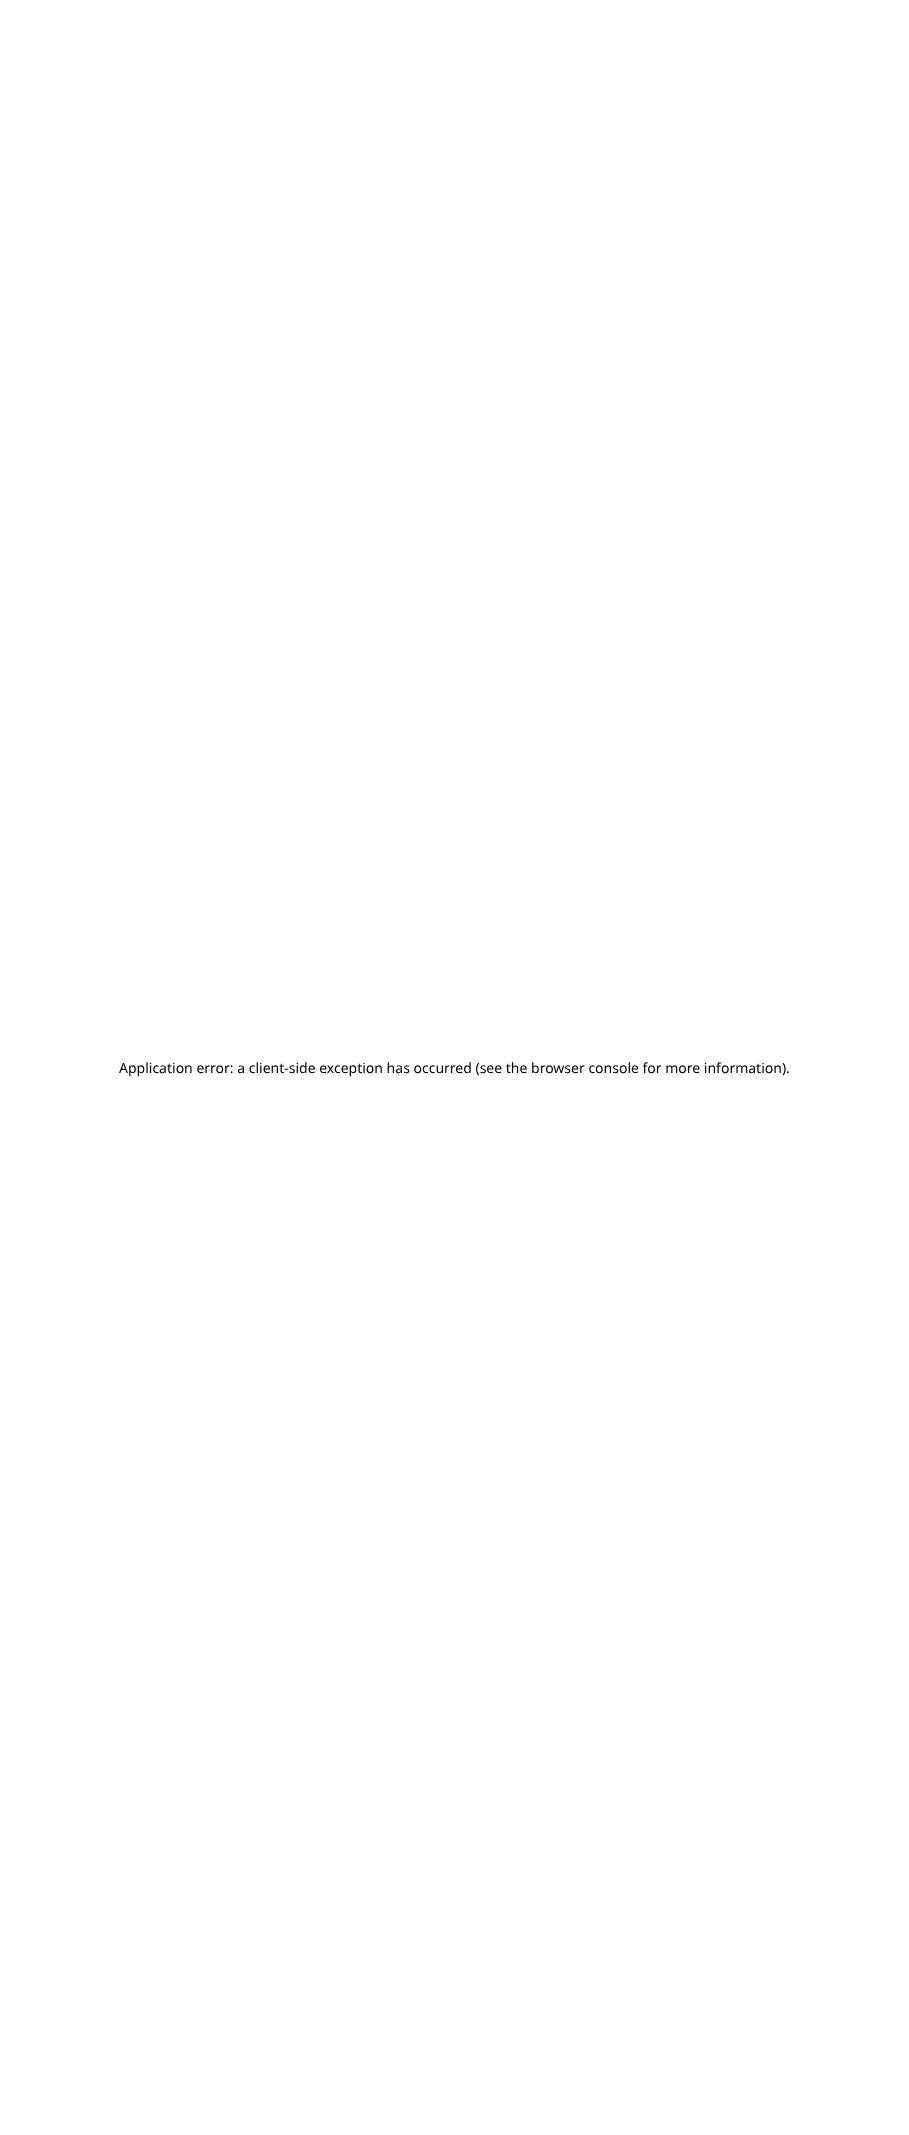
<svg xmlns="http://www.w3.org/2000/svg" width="909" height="2135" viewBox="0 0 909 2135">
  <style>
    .t1 { font: 14px Noto Sans; fill: #000; }
  </style>
  <rect width="100%" height="100%" fill="#fff"/>
  <text x="119" y="1073" class="t1">Application error: a client-side exception has occurred (see the browser console for more information).</text>
</svg>
